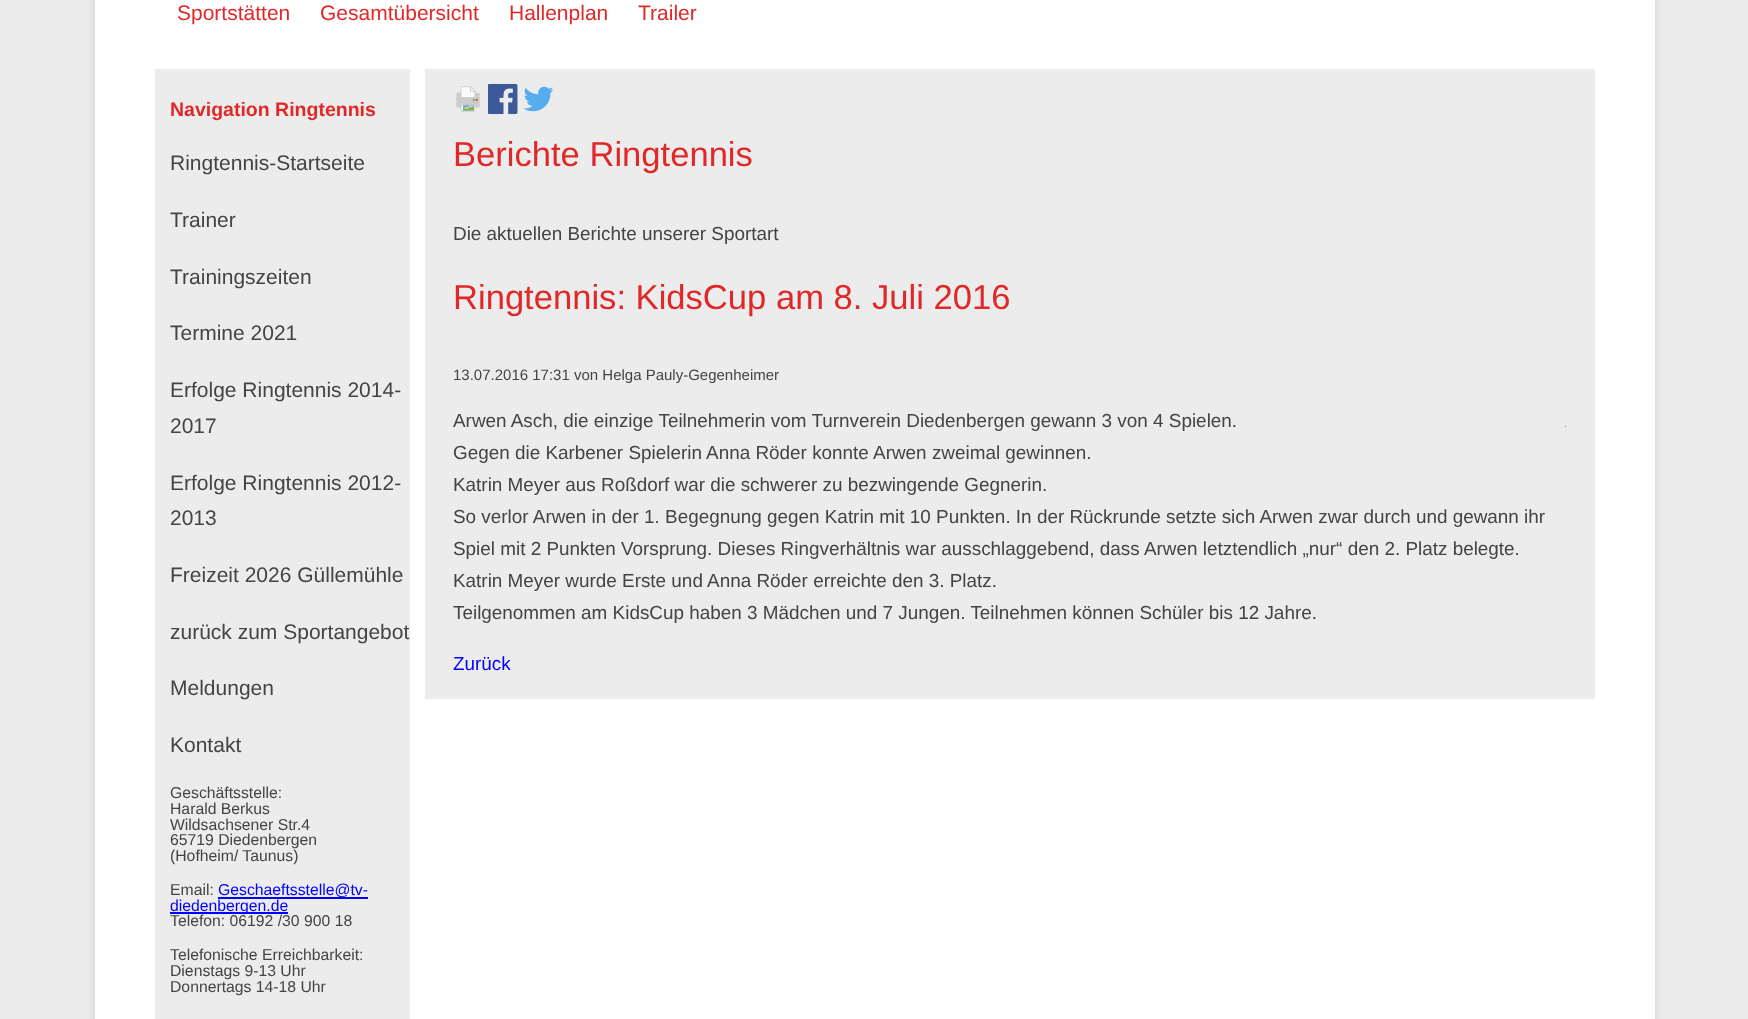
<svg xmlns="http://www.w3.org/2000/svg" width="1748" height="1019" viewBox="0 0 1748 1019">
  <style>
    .t1 { font: 21px Liberation Sans; fill: #e02828; }
    .t2 { font: bold 19.5px Liberation Sans; fill: #e02828; }
    .t3 { font: 21px Liberation Sans; fill: #444; }
    .t4 { font: 15.75px Liberation Sans; fill: #444; }
    .t5 { font: 15.75px Liberation Sans; fill: #00f; }
    .t6 { font: 34.6px Liberation Sans; fill: #e02828; }
    .t7 { font: 18.9px Liberation Sans; fill: #444; }
    .t8 { font: 15px Liberation Sans; fill: #444; }
    .t9 { font: 18.9px Liberation Sans; fill: #00f; }
  </style>
  <rect width="100%" height="100%" fill="#ececec"/>
  <rect x="95" y="-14" width="1560" height="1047" fill="#8e8e8e4d" filter="blur(4.5px)"/>
  <rect x="95" y="0" width="1560" height="1019" fill="#fff"/>
  <text x="177" y="20" class="t1">Sportstätten</text>
  <text x="320" y="20" class="t1">Gesamtübersicht</text>
  <text x="509" y="20" class="t1">Hallenplan</text>
  <text x="638" y="20" class="t1">Trailer</text>
  <rect x="155" y="69" width="255" height="950" fill="#ececec"/>
  <text x="170" y="116" class="t2">Navigation Ringtennis</text>
  <text x="170" y="170" class="t3">Ringtennis-Startseite</text>
  <text x="170" y="227" class="t3">Trainer</text>
  <text x="170" y="284" class="t3">Trainingszeiten</text>
  <text x="170" y="340" class="t3">Termine 2021</text>
  <text x="170" y="397" class="t3">Erfolge Ringtennis 2014-</text>
  <text x="170" y="433" class="t3">2017</text>
  <text x="170" y="490" class="t3">Erfolge Ringtennis 2012-</text>
  <text x="170" y="525" class="t3">2013</text>
  <text x="170" y="582" class="t3">Freizeit 2026 Güllemühle</text>
  <text x="170" y="639" class="t3">zurück zum Sportangebot</text>
  <text x="170" y="695" class="t3">Meldungen</text>
  <text x="170" y="752" class="t3">Kontakt</text>
  <text x="170" y="798" class="t4">Geschäftsstelle:</text>
  <text x="170" y="814" class="t4">Harald Berkus</text>
  <text x="170" y="830" class="t4">Wildsachsener Str.4</text>
  <text x="170" y="845" class="t4">65719 Diedenbergen</text>
  <text x="170" y="861" class="t4">(Hofheim/ Taunus)</text>
  <text x="170" y="895" class="t4">Email:</text>
  <rect x="218" y="897" width="150" height="2" fill="#00f"/>
  <text x="218" y="895" class="t5">Geschaeftsstelle@tv-</text>
  <rect x="170" y="912" width="118" height="2" fill="#00f"/>
  <text x="170" y="911" class="t5">diedenbergen.de</text>
  <text x="170" y="926" class="t4">Telefon: 06192 /30 900 18</text>
  <text x="170" y="960" class="t4">Telefonische Erreichbarkeit:</text>
  <text x="170" y="976" class="t4">Dienstags 9-13 Uhr</text>
  <text x="170" y="992" class="t4">Donnertags 14-18 Uhr</text>
  <rect x="425" y="69" width="1170" height="630" fill="#ececec"/>
  <image x="456" y="86" width="24" height="26" href="images/1.png"/>
  <image x="488" y="84" width="30" height="30" href="images/2.png"/>
  <image x="524" y="86" width="30" height="26" href="images/3.png"/>
  <text x="453" y="166" class="t6">Berichte Ringtennis</text>
  <text x="453" y="240" class="t7">Die aktuellen Berichte unserer Sportart</text>
  <text x="453" y="309" class="t6">Ringtennis: KidsCup am 8. Juli 2016</text>
  <text x="453" y="380" class="t8">13.07.2016 17:31 von Helga Pauly-Gegenheimer</text>
  <text x="453" y="427" class="t7">Arwen Asch, die einzige Teilnehmerin vom Turnverein Diedenbergen gewann 3 von 4 Spielen.</text>
  <text x="453" y="459" class="t7">Gegen die Karbener Spielerin Anna Röder konnte Arwen zweimal gewinnen.</text>
  <text x="453" y="491" class="t7">Katrin Meyer aus Roßdorf war die schwerer zu bezwingende Gegnerin.</text>
  <text x="453" y="523" class="t7">So verlor Arwen in der 1. Begegnung gegen Katrin mit 10 Punkten. In der Rückrunde setzte sich Arwen zwar durch und gewann ihr</text>
  <text x="453" y="555" class="t7">Spiel mit 2 Punkten Vorsprung. Dieses Ringverhältnis war ausschlaggebend, dass Arwen letztendlich „nur“ den 2. Platz belegte.</text>
  <text x="453" y="587" class="t7">Katrin Meyer wurde Erste und Anna Röder erreichte den 3. Platz.</text>
  <text x="453" y="619" class="t7">Teilgenommen am KidsCup haben 3 Mädchen und 7 Jungen. Teilnehmen können Schüler bis 12 Jahre.</text>
  <image x="1564" y="425" width="2" height="2" href="images/4.png"/>
  <text x="453" y="670" class="t9">Zurück</text>
</svg>
